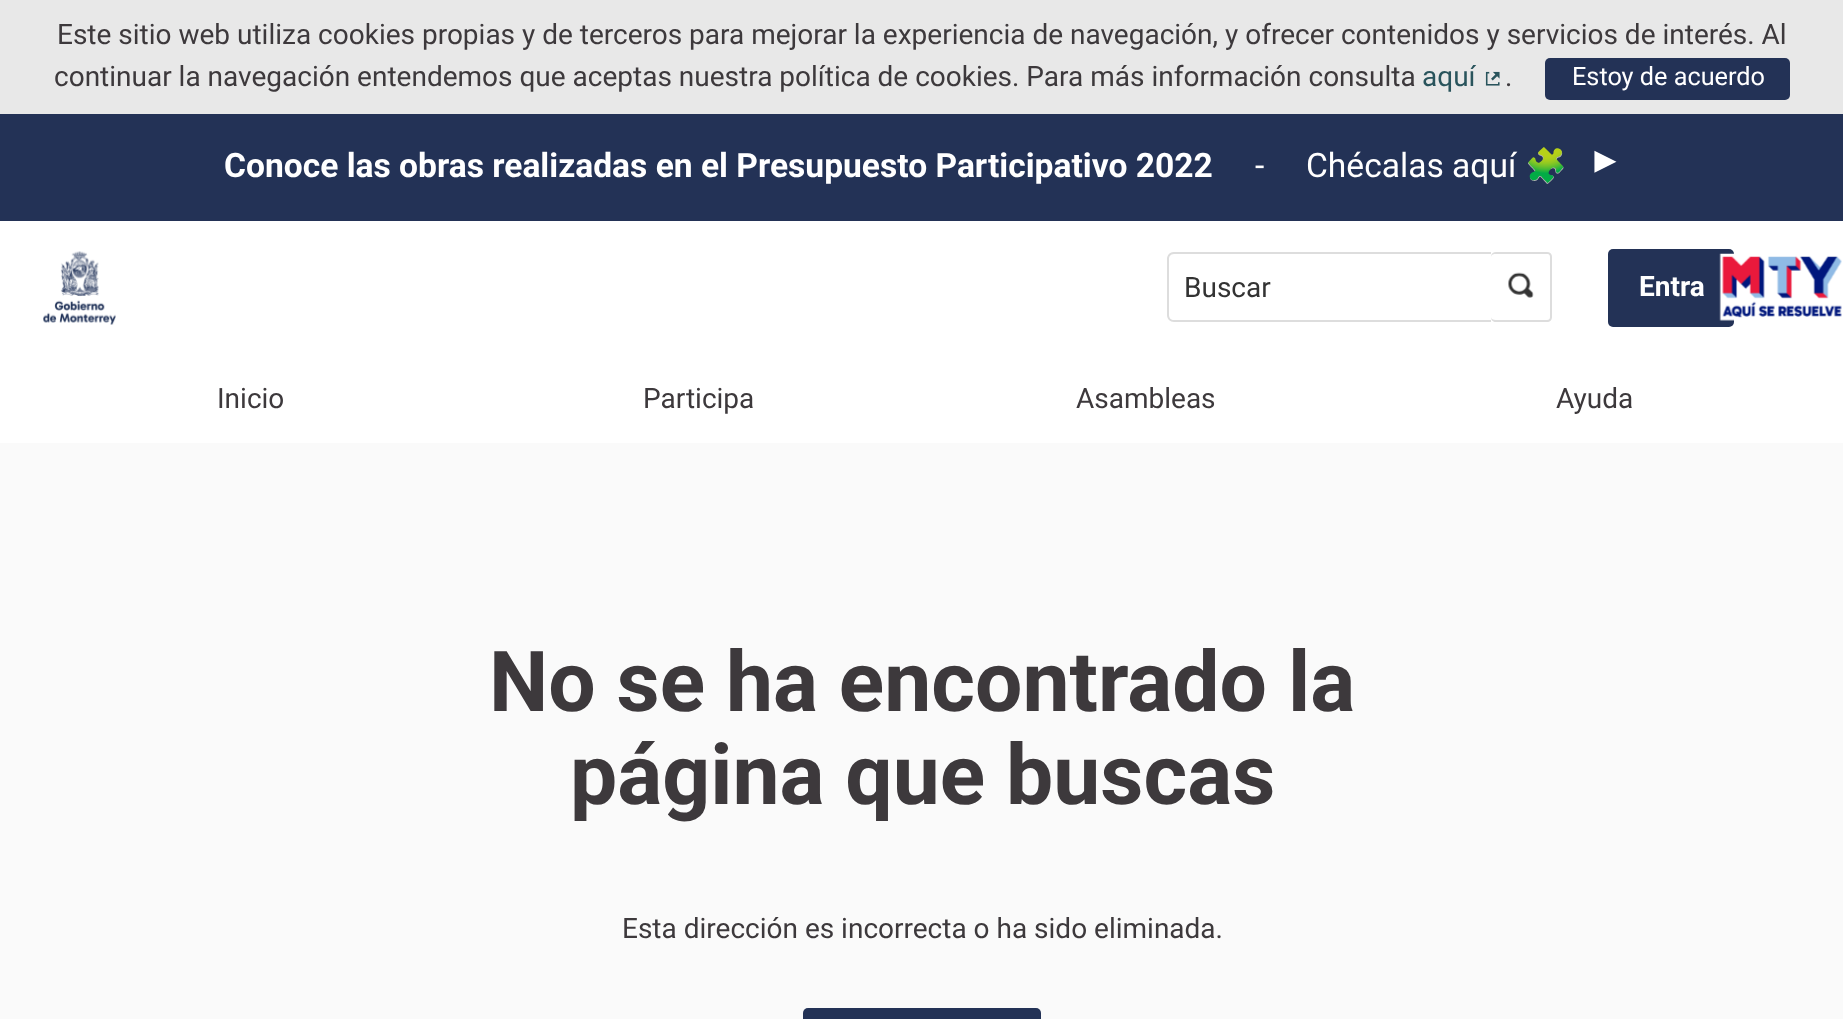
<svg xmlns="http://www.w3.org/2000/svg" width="1843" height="1019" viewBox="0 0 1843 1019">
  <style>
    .t1 { font: 28px Roboto; fill: #3d393c; }
    .t2 { font: 28px Roboto; fill: #29545c; }
    .t3 { font: 25.25px Roboto; fill: #fff; }
    .t4 { font: bold 33.6px Roboto; fill: #fff; }
    .t5 { font: 33.6px Roboto; fill: #fff; }
    .t6 { font: 33.6px Noto Color Emoji; fill: #fff; }
    .t7 { font: 28px Roboto; fill: #333; }
    .t8 { font: bold 28px Roboto; fill: #fff; }
    .t9 { font: bold 84px Roboto; fill: #3d393c; }
  </style>
  <rect width="100%" height="100%" fill="#fafafa"/>
  <rect x="0" y="0" width="1843" height="114" fill="#e8e8e8"/>
  <text x="57" y="44" class="t1">Este sitio web utiliza cookies propias y de terceros para mejorar la experiencia de navegación, y ofrecer contenidos y servicios de interés. Al</text>
  <text x="54" y="86" class="t1">continuar la navegación entendemos que aceptas nuestra política de cookies. Para más información consulta</text>
  <text x="1422" y="86" class="t2">aquí</text>
  <image x="1485" y="71" width="15" height="15" href="images/1.png"/>
  <text x="1505" y="86" class="t1">.</text>
  <rect x="1545" y="58" width="245" height="42" rx="5" fill="#233256"/>
  <text x="1572" y="85" class="t3">Estoy de acuerdo</text>
  <rect x="0" y="114" width="1843" height="107" fill="#233256"/>
  <text x="224" y="177" class="t4">Conoce las obras realizadas en el Presupuesto Participativo 2022</text>
  <text x="1255" y="177" class="t5">-</text>
  <text x="1306" y="177" class="t5">Chécalas aquí</text>
  <text x="1525" y="177" class="t6">🧩</text>
  <image x="1594" y="150" width="23" height="23" href="images/2.png"/>
  <rect x="0" y="221" width="1843" height="222" fill="#fff"/>
  <image x="43" y="251" width="73" height="74" href="images/3.png"/>
  <path d="M1174 252H1491V322H1174C1170 322 1167 319 1167 315V259C1167 255 1170 252 1174 252ZM1174 254H1491V320H1174C1171 320 1169 318 1169 315V259C1169 256 1171 254 1174 254Z" fill="#ddd" fill-rule="evenodd"/>
  <text x="1184" y="297" class="t7">Buscar</text>
  <path d="M1496 252H1547C1550 252 1552 254 1552 257V317C1552 320 1550 322 1547 322H1496C1493 322 1491 320 1491 317V257C1491 254 1493 252 1496 252ZM1496 254H1547C1549 254 1550 255 1550 257V317C1550 319 1549 320 1547 320H1496C1493 320 1491 319 1491 317V257C1491 255 1493 254 1496 254Z" fill="#ddd" fill-rule="evenodd"/>
  <image x="1508" y="272" width="26" height="26" href="images/4.png"/>
  <rect x="1608" y="249" width="126" height="78" rx="5" fill="#233256"/>
  <text x="1639" y="296" class="t8">Entra</text>
  <image x="1719" y="253" width="123" height="68" href="images/5.png"/>
  <text x="217" y="408" class="t1">Inicio</text>
  <text x="643" y="408" class="t1">Participa</text>
  <text x="1076" y="408" class="t1">Asambleas</text>
  <text x="1556" y="408" class="t1">Ayuda</text>
  <text x="489" y="711" class="t9">No se ha encontrado la</text>
  <text x="570" y="804" class="t9">página que buscas</text>
  <text x="622" y="938" class="t1">Esta dirección es incorrecta o ha sido eliminada.</text>
  <rect x="803" y="1008" width="238" height="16" rx="5" fill="#233256"/>
</svg>
